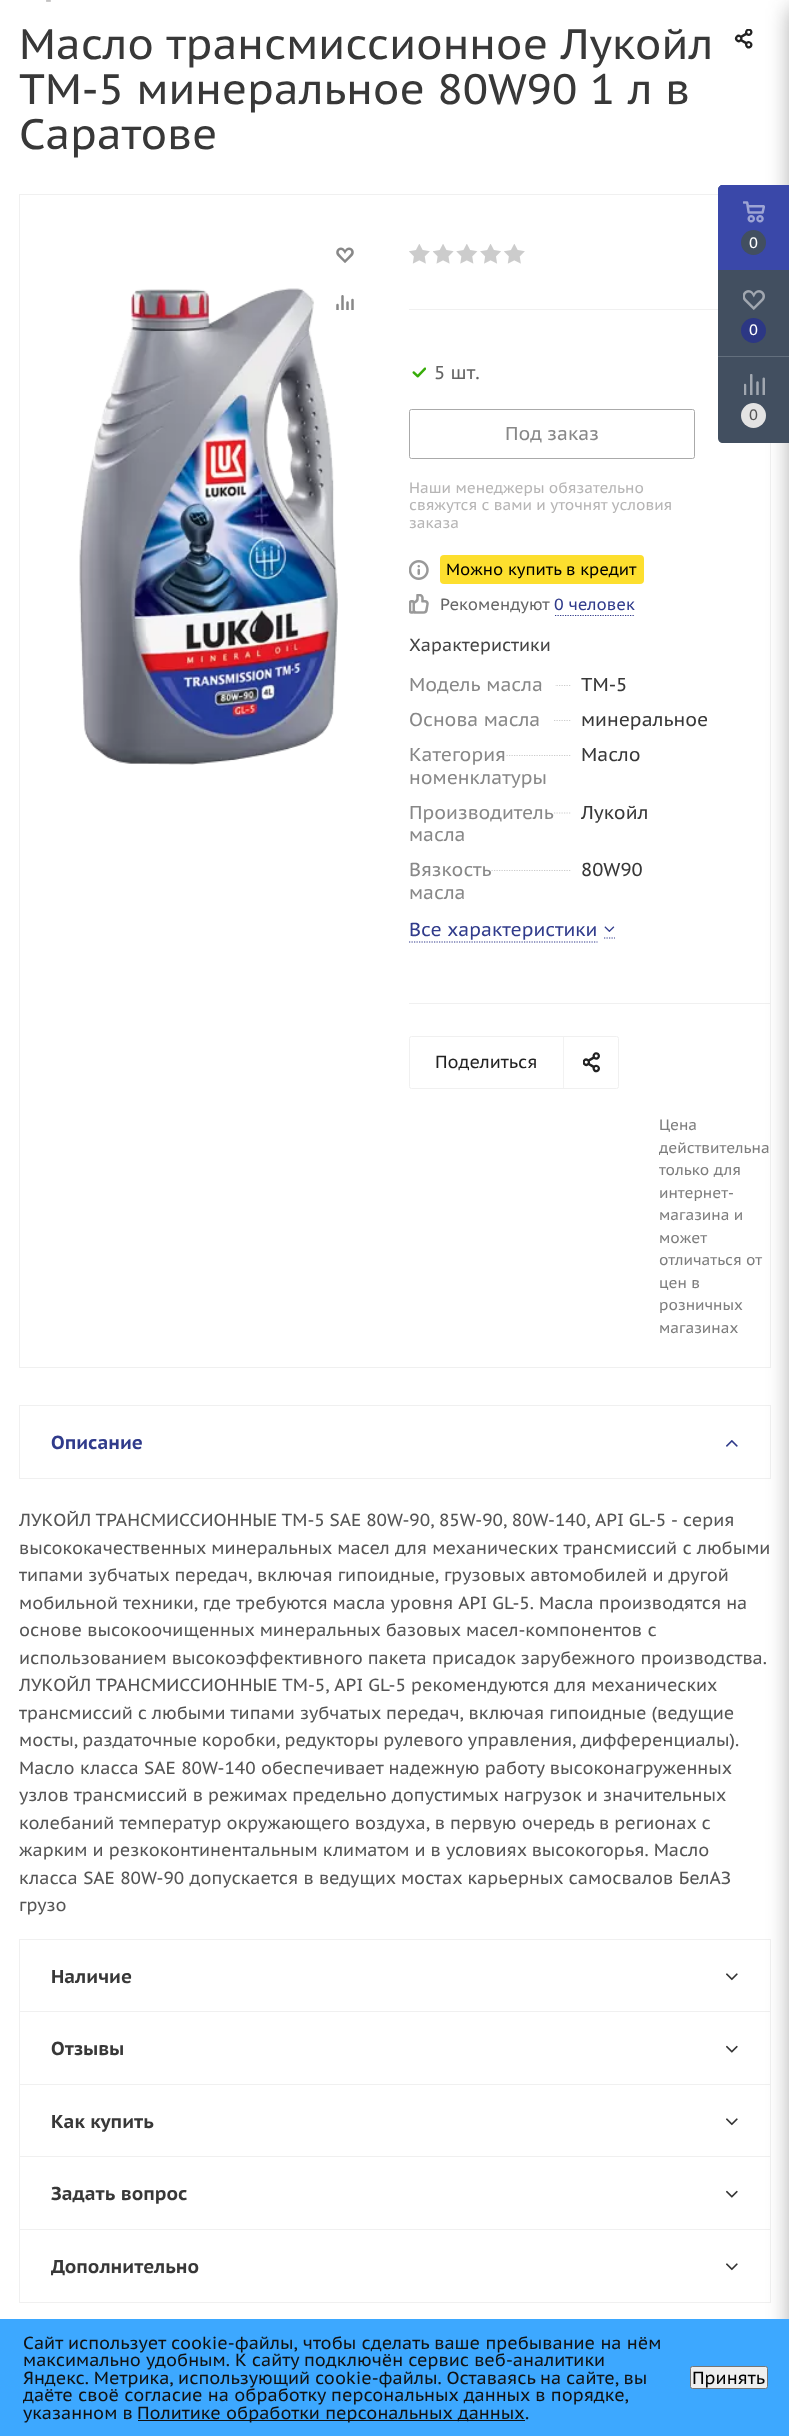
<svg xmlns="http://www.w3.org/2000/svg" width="789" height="2436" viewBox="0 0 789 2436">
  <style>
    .t1 { font: 17.5px PT Sans Caption; fill: #b6b5b5; }
    .t2 { font: 42.5px PT Sans Caption; fill: #383838; }
    .t3 { font: 18.75px PT Sans Caption; fill: #666; }
    .t4 { font: 18.75px PT Sans Caption; fill: #888; }
    .t5 { font: 15px PT Sans Caption; fill: #b6b5b5; }
    .t6 { font: 16.25px PT Sans Caption; fill: #000; }
    .t7 { font: 16.25px PT Sans Caption; fill: #666; }
    .t8 { font: 16.25px PT Sans Caption; fill: #303b8b; }
    .t9 { font: 17.5px PT Sans Caption; fill: #444; }
    .t10 { font: 18.75px PT Sans Caption; fill: #383838; }
    .t11 { font: 18.75px PT Sans Caption; fill: #303b8b; }
    .t12 { font: 17.5px PT Sans Caption; fill: #222; }
    .t13 { font: 15px PT Sans Caption; fill: #7d7d7d; }
    .t14 { font: bold 18.75px PT Sans Caption; fill: #303b8b; }
    .t15 { font: 17.5px PT Sans Caption; fill: #555; }
    .t16 { font: bold 18.75px PT Sans Caption; fill: #383838; }
    .t17 { font: 15px PT Sans Caption; fill: #fff; }
    .t18 { font: 15px PT Sans Caption; fill: #555; }
    .t19 { font: 17.5px PT Sans Caption; fill: #111; }
    .t20 { font: 17.5px PT Sans Caption; fill: #000; }
  </style>
  <rect width="100%" height="100%" fill="#fff"/>
  <text x="45" y="6" class="t1">-</text>
  <text x="19" y="59" class="t2">Масло трансмиссионное Лукойл</text>
  <text x="19" y="104" word-spacing="0.25" class="t2">ТМ-5 минеральное 80W90 1 л в</text>
  <text x="19" y="149" class="t2">Саратове</text>
  <image x="734" y="29" width="19" height="20" href="images/1.png"/>
  <rect x="19.5" y="194.5" width="751" height="1173" fill="none" stroke="#f0f0f0"/>
  <image x="336" y="247" width="18" height="16" href="images/2.png"/>
  <image x="79" y="288" width="259" height="477" href="images/4.png"/>
  <image x="336" y="295" width="18" height="15" href="images/3.png"/>
  <rect x="409" y="309" width="309" height="1" fill="#f0f0f0"/>
  <image x="409" y="244" width="21" height="20" href="images/5.png"/>
  <image x="433" y="244" width="21" height="20" href="images/6.png"/>
  <image x="456" y="244" width="22" height="20" href="images/7.png"/>
  <image x="480" y="244" width="21" height="20" href="images/8.png"/>
  <image x="504" y="244" width="21" height="20" href="images/5.png"/>
  <image x="412" y="367" width="14" height="11" href="images/9.png"/>
  <text x="434" y="379" class="t3">5 шт.</text>
  <rect x="409.5" y="409.5" width="285" height="49" rx="2" fill="none" stroke="#aaa"/>
  <text x="505" y="440" class="t4">Под заказ</text>
  <text x="409" y="493" class="t5">Наши менеджеры обязательно</text>
  <text x="409" y="510" class="t5">свяжутся с вами и уточнят условия</text>
  <text x="409" y="528" class="t5">заказа</text>
  <image x="409" y="560" width="20" height="20" href="images/10.png"/>
  <rect x="440" y="555" width="204" height="29" rx="4" fill="#fddf2e"/>
  <text x="446" y="575" class="t6">Можно купить в кредит</text>
  <image x="409" y="594" width="20" height="20" href="images/11.png"/>
  <text x="440" y="610" class="t7">Рекомендуют</text>
  <text x="554" y="610" class="t8">0 человек</text>
  <path d="M555 615.5H635" fill="none" stroke="#303b8b" stroke-width="1.2" stroke-dasharray="1.25 1.25"/>
  <text x="409" y="651" class="t9">Характеристики</text>
  <path d="M409 685.5H732.5" fill="none" stroke="#ccc" stroke-width="1.2" stroke-dasharray="1.25 1.25"/>
  <rect x="409" y="684" width="146" height="3" fill="#fff"/>
  <text x="409" y="691" word-spacing="1" class="t4">Модель масла</text>
  <rect x="571" y="684" width="162" height="3" fill="#fff"/>
  <text x="581" y="691" class="t10">ТМ-5</text>
  <path d="M409 720.5H732.5" fill="none" stroke="#ccc" stroke-width="1.2" stroke-dasharray="1.25 1.25"/>
  <rect x="409" y="719" width="144" height="3" fill="#fff"/>
  <text x="409" y="726" class="t4">Основа масла</text>
  <rect x="571" y="719" width="162" height="3" fill="#fff"/>
  <text x="581" y="726" class="t10">минеральное</text>
  <path d="M409 755.5H732.5" fill="none" stroke="#ccc" stroke-width="1.2" stroke-dasharray="1.25 1.25"/>
  <rect x="409" y="754" width="97" height="3" fill="#fff"/>
  <text x="409" y="761" class="t4">Категория</text>
  <text x="409" y="784" class="t4">номенклатуры</text>
  <rect x="571" y="754" width="162" height="3" fill="#fff"/>
  <text x="581" y="761" class="t10">Масло</text>
  <path d="M409 813H732.5" fill="none" stroke="#ccc" stroke-width="1.2" stroke-dasharray="1.25 1.25"/>
  <rect x="409" y="812" width="144" height="2" fill="#fff"/>
  <text x="409" y="819" class="t4">Производитель</text>
  <text x="409" y="841" class="t4">масла</text>
  <rect x="571" y="812" width="162" height="2" fill="#fff"/>
  <text x="581" y="819" class="t10">Лукойл</text>
  <path d="M409 870.5H732.5" fill="none" stroke="#ccc" stroke-width="1.2" stroke-dasharray="1.25 1.25"/>
  <rect x="409" y="869" width="82" height="3" fill="#fff"/>
  <text x="409" y="876" class="t4">Вязкость</text>
  <text x="409" y="899" class="t4">масла</text>
  <rect x="571" y="869" width="162" height="3" fill="#fff"/>
  <text x="581" y="876" class="t10">80W90</text>
  <path d="M604 938H615" fill="none" stroke="#303b8b" stroke-width="1.2" stroke-dasharray="1.25 1.25"/>
  <path d="M409 942H597.5" fill="none" stroke="#303b8b" stroke-width="1.2" stroke-dasharray="1.25 1.25"/>
  <text x="409" y="936" class="t11">Все характеристики</text>
  <image x="604" y="926" width="11" height="6" href="images/12.png"/>
  <rect x="409" y="1003" width="361" height="1" fill="#f0f0f0"/>
  <rect x="563" y="1036" width="1" height="53" fill="#f2f2f2"/>
  <image x="583" y="1052" width="17" height="21" href="images/13.png"/>
  <rect x="409.5" y="1036.5" width="209" height="52" rx="2" fill="none" stroke="#f0f0f0"/>
  <text x="435" y="1068" class="t12">Поделиться</text>
  <text x="659" y="1130" class="t13">Цена</text>
  <text x="659" y="1153" class="t13">действительна</text>
  <text x="659" y="1175" class="t13">только для</text>
  <text x="659" y="1198" class="t13">интернет-</text>
  <text x="659" y="1220" class="t13">магазина и</text>
  <text x="659" y="1243" class="t13">может</text>
  <text x="659" y="1265" class="t13">отличаться от</text>
  <text x="659" y="1288" class="t13">цен в</text>
  <text x="659" y="1310" class="t13">розничных</text>
  <text x="659" y="1333" class="t13">магазинах</text>
  <rect x="19.5" y="1405.5" width="751" height="73" fill="none" stroke="#f0f0f0"/>
  <text x="51" y="1449" class="t14">Описание</text>
  <image x="726" y="1440" width="12" height="7" href="images/14.png"/>
  <text x="19" y="1526" word-spacing="-0.25" class="t15">ЛУКОЙЛ ТРАНСМИССИОННЫЕ ТМ-5 SAE 80W-90, 85W-90, 80W-140, API GL-5 - серия</text>
  <text x="19" y="1554" word-spacing="0.25" class="t15">высококачественных минеральных масел для механических трансмиссий с любыми</text>
  <text x="19" y="1581" class="t15">типами зубчатых передач, включая гипоидные, грузовых автомобилей и другой</text>
  <text x="19" y="1609" class="t15">мобильной техники, где требуются масла уровня API GL-5. Масла производятся на</text>
  <text x="19" y="1636" word-spacing="0.25" class="t15">основе высокоочищенных минеральных базовых масел-компонентов с</text>
  <text x="19" y="1664" class="t15">использованием высокоэффективного пакета присадок зарубежного производства.</text>
  <text x="19" y="1691" class="t15">ЛУКОЙЛ ТРАНСМИССИОННЫЕ ТМ-5, API GL-5 рекомендуются для механических</text>
  <text x="19" y="1719" class="t15">трансмиссий с любыми типами зубчатых передач, включая гипоидные (ведущие</text>
  <text x="19" y="1746" word-spacing="-0.5" class="t15">мосты, раздаточные коробки, редукторы рулевого управления, дифференциалы).</text>
  <text x="19" y="1774" word-spacing="0.25" class="t15">Масло класса SAE 80W-140 обеспечивает надежную работу высоконагруженных</text>
  <text x="19" y="1801" class="t15">узлов трансмиссий в режимах предельно допустимых нагрузок и значительных</text>
  <text x="19" y="1829" class="t15">колебаний температур окружающего воздуха, в первую очередь в регионах с</text>
  <text x="19" y="1856" class="t15">жарким и резкоконтинентальным климатом и в условиях высокогорья. Масло</text>
  <text x="19" y="1884" word-spacing="0.25" class="t15">класса SAE 80W-90 допускается в ведущих мостах карьерных самосвалов БелАЗ</text>
  <text x="19" y="1911" class="t15">грузо</text>
  <rect x="19.5" y="1939.5" width="751" height="73" fill="none" stroke="#f0f0f0"/>
  <text x="51" y="1983" class="t16">Наличие</text>
  <image x="726" y="1973" width="12" height="8" href="images/15.png"/>
  <rect x="20" y="2012" width="750" height="1" fill="#fff"/>
  <rect x="19.5" y="2011.5" width="751" height="73" fill="none" stroke="#f0f0f0"/>
  <text x="51" y="2055" class="t16">Отзывы</text>
  <image x="726" y="2045" width="12" height="8" href="images/16.png"/>
  <rect x="19.5" y="2084.5" width="751" height="73" fill="none" stroke="#f0f0f0"/>
  <text x="51" y="2128" class="t16">Как купить</text>
  <image x="726" y="2118" width="12" height="8" href="images/15.png"/>
  <rect x="20" y="2157" width="750" height="1" fill="#fff"/>
  <rect x="19.5" y="2156.5" width="751" height="73" fill="none" stroke="#f0f0f0"/>
  <text x="51" y="2200" word-spacing="1" class="t16">Задать вопрос</text>
  <image x="726" y="2190" width="12" height="8" href="images/16.png"/>
  <rect x="19.5" y="2229.5" width="751" height="73" fill="none" stroke="#f0f0f0"/>
  <text x="51" y="2273" class="t16">Дополнительно</text>
  <image x="726" y="2263" width="12" height="8" href="images/15.png"/>
  <rect x="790" y="8" width="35" height="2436" rx="2.5" fill="#2c2c2c66" filter="blur(11px)"/>
  <path d="M723 185H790V443H723C720 443 718 441 718 438V190C718 187 720 185 723 185Z" fill="#424f60"/>
  <path d="M723 185H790V270H718V190C718 187 720 185 723 185Z" fill="#3a48a9"/>
  <image x="743" y="201" width="22" height="22" href="images/17.png"/>
  <circle cx="753.5" cy="242.5" r="12.5" fill="#424f60"/>
  <text x="749" y="248" class="t17">0</text>
  <image x="743" y="290" width="22" height="20" href="images/18.png"/>
  <circle cx="753.5" cy="330.5" r="12.5" fill="#2c3784"/>
  <text x="749" y="335" class="t17">0</text>
  <rect x="718" y="356" width="71" height="1" fill="#636f7d"/>
  <image x="744" y="374" width="21" height="21" href="images/19.png"/>
  <circle cx="753.5" cy="415.5" r="12.5" fill="#e3e3e3"/>
  <text x="749" y="420" class="t18">0</text>
  <rect x="0" y="2319" width="789" height="117" fill="#3da8ff"/>
  <text x="23" y="2349" word-spacing="0.25" class="t19">Сайт использует cookie-файлы, чтобы сделать ваше пребывание на нём</text>
  <text x="23" y="2366" class="t19">максимально удобным. К cайту подключён сервис веб-аналитики</text>
  <text x="23" y="2384" word-spacing="-0.25" class="t19">Яндекс. Метрика, использующий cookie-файлы. Оставаясь на сайте, вы</text>
  <text x="23" y="2401" word-spacing="0.25" class="t19">даёте своё согласие на обработку персональных данных в порядке,</text>
  <text x="23" y="2419" class="t19">указанном в</text>
  <rect x="138" y="2420" width="387" height="1" fill="#111"/>
  <text x="137" y="2419" word-spacing="0.25" class="t19">Политике обработки персональных данных</text>
  <text x="525" y="2419" class="t19">.</text>
  <rect x="690.5" y="2366.5" width="77" height="22" rx="2" fill="#efefef" stroke="#767676"/>
  <text x="692" y="2384" class="t20">Принять</text>
</svg>
